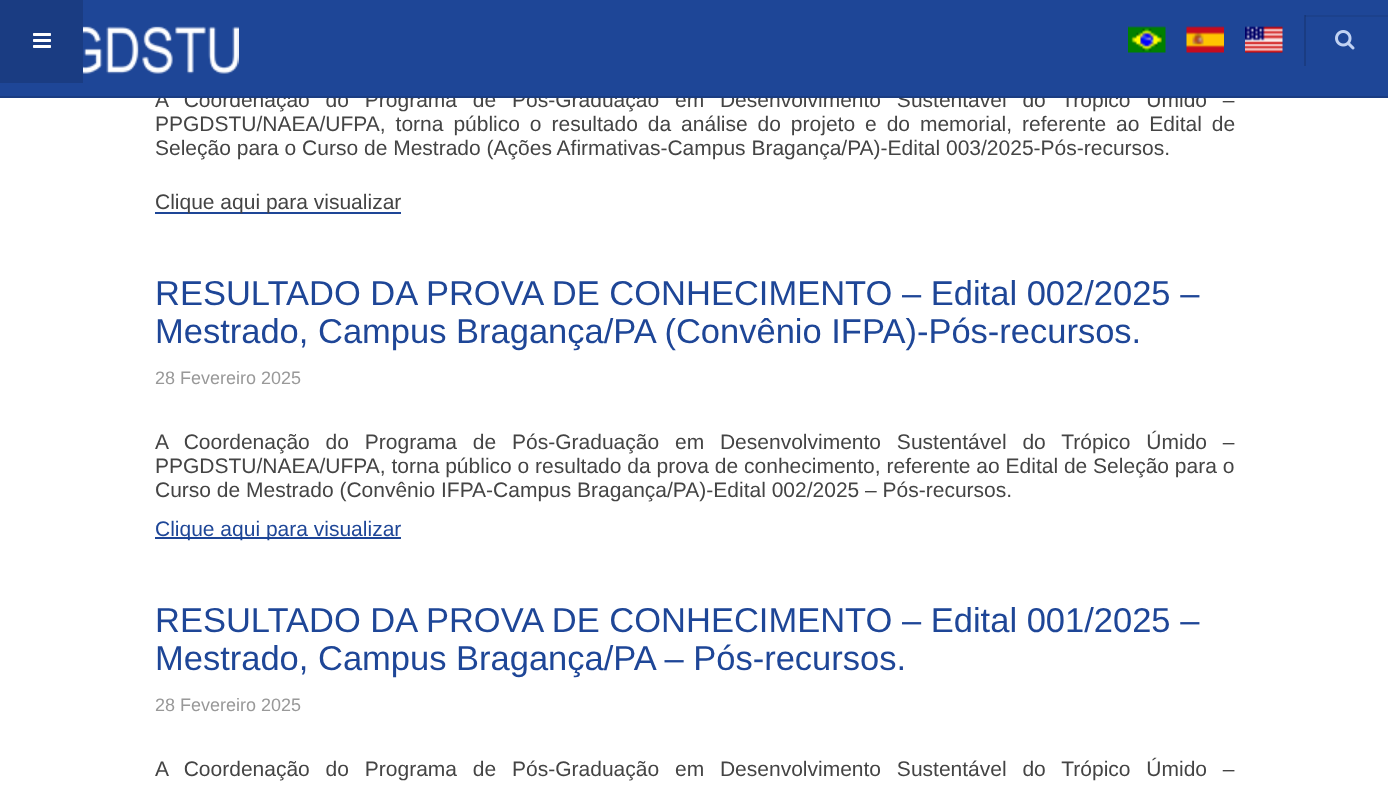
<svg xmlns="http://www.w3.org/2000/svg" width="1388" height="792" viewBox="0 0 1388 792">
  <style>
    .t1 { font: 21px Liberation Sans; fill: #444; }
    .t2 { font: 34.5px Liberation Sans; fill: #1e4697; }
    .t3 { font: 18px Liberation Sans; fill: #999; }
    .t4 { font: 21px Liberation Sans; fill: #1e4697; }
  </style>
  <rect width="100%" height="100%" fill="#fff"/>
  <text x="155" y="107" word-spacing="10" class="t1">A Coordenação do Programa de Pós-Graduação em Desenvolvimento Sustentável do Trópico Úmido –</text>
  <rect x="0" y="0" width="1388" height="96" fill="#1e4697"/>
  <rect x="1305" y="15" width="83" height="2" fill="#1c418c"/>
  <rect x="0" y="96" width="1388" height="2" fill="#1a3c82"/>
  <rect x="0" y="0" width="83" height="83" fill="#1a3c82"/>
  <image x="33" y="33" width="18" height="15" href="images/1.png"/>
  <image x="83" y="26" width="156" height="48" href="images/2.png"/>
  <image x="1128" y="26" width="38" height="27" href="images/3.png"/>
  <image x="1186" y="26" width="38" height="27" href="images/4.png"/>
  <image x="1245" y="26" width="38" height="27" href="images/5.png"/>
  <rect x="1304" y="15" width="2" height="51" fill="#1a3c82"/>
  <rect x="1305" y="15" width="1" height="2" fill="#183879"/>
  <image x="1335" y="30" width="20" height="20" href="images/6.png"/>
  <text x="155" y="131" word-spacing="4.1" class="t1">PPGDSTU/NAEA/UFPA, torna público o resultado da análise do projeto e do memorial, referente ao Edital de</text>
  <text x="155" y="155" class="t1">Seleção para o Curso de Mestrado (Ações Afirmativas-Campus Bragança/PA)-Edital 003/2025-Pós-recursos.</text>
  <rect x="155" y="212" width="246" height="2" fill="#1e4697"/>
  <text x="155" y="209" class="t1">Clique aqui para visualizar</text>
  <text x="155" y="305" class="t2">RESULTADO DA PROVA DE CONHECIMENTO – Edital 002/2025 –</text>
  <text x="155" y="343" class="t2">Mestrado, Campus Bragança/PA (Convênio IFPA)-Pós-recursos.</text>
  <text x="155" y="384" class="t3">28 Fevereiro 2025</text>
  <text x="155" y="449" word-spacing="10" class="t1">A Coordenação do Programa de Pós-Graduação em Desenvolvimento Sustentável do Trópico Úmido –</text>
  <text x="155" y="473" class="t1">PPGDSTU/NAEA/UFPA, torna público o resultado da prova de conhecimento, referente ao Edital de Seleção para o</text>
  <text x="155" y="497" class="t1">Curso de Mestrado (Convênio IFPA-Campus Bragança/PA)-Edital 002/2025 – Pós-recursos.</text>
  <rect x="155" y="537" width="246" height="2" fill="#1e4697"/>
  <text x="155" y="536" class="t4">Clique aqui para visualizar</text>
  <text x="155" y="632" class="t2">RESULTADO DA PROVA DE CONHECIMENTO – Edital 001/2025 –</text>
  <text x="155" y="670" class="t2">Mestrado, Campus Bragança/PA – Pós-recursos.</text>
  <text x="155" y="711" class="t3">28 Fevereiro 2025</text>
  <text x="155" y="776" word-spacing="10" class="t1">A Coordenação do Programa de Pós-Graduação em Desenvolvimento Sustentável do Trópico Úmido –</text>
</svg>
